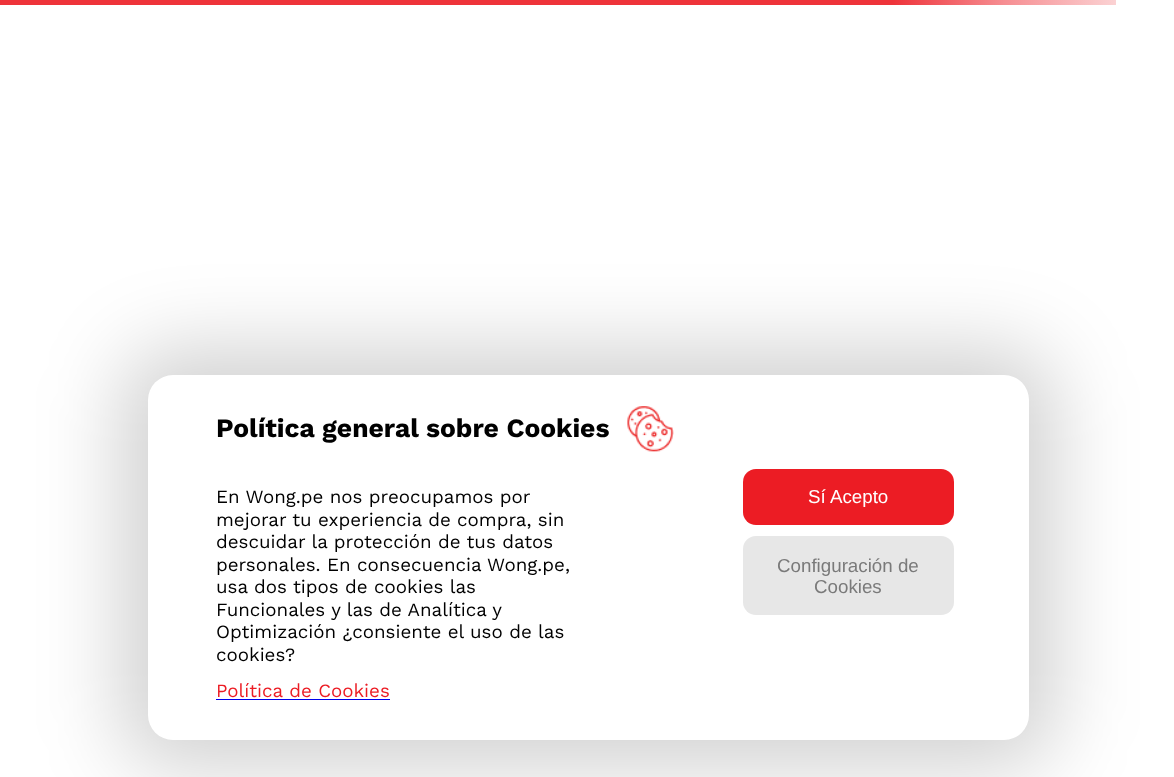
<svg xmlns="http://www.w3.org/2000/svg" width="1174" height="777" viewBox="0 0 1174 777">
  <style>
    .t1 { font: bold 26.4px Work Sans; fill: #000; }
    .t2 { font: 18.75px Work Sans; fill: #000; }
    .t3 { font: 18.75px Liberation Sans; fill: #fff; }
    .t4 { font: 18.75px Liberation Sans; fill: #7a7a7a; }
    .t5 { font: 18.75px Work Sans; fill: #ec1c24; }
  </style>
  <defs>
    <linearGradient id="g1" gradientUnits="userSpaceOnUse" x1="0" y1="2.5" x2="1116" y2="2.5"><stop offset="0.8" stop-color="#ee333a"/><stop offset="0.9" stop-color="#f68e92"/><stop offset="1" stop-color="#fbd2d3"/></linearGradient>
  </defs>
  <rect width="100%" height="100%" fill="#fff"/>
  <rect x="0" y="0" width="1116" height="5" fill="url(#g1)"/>
  <rect x="120" y="348" width="936" height="420" rx="53" fill="#0000002e" filter="blur(41px)"/>
  <rect x="148" y="375" width="881" height="365" rx="25" fill="#fff"/>
  <text x="216" y="437" class="t1">Política general sobre Cookies</text>
  <image x="627" y="406" width="47" height="46" href="images/1.png"/>
  <text x="216" y="503" class="t2">En Wong.pe nos preocupamos por</text>
  <text x="216" y="526" class="t2">mejorar tu experiencia de compra, sin</text>
  <text x="216" y="548" class="t2">descuidar la protección de tus datos</text>
  <text x="216" y="571" class="t2">personales. En consecuencia Wong.pe,</text>
  <text x="216" y="593" class="t2">usa dos tipos de cookies las</text>
  <text x="216" y="616" class="t2">Funcionales y las de Analítica y</text>
  <text x="216" y="638" class="t2">Optimización ¿consiente el uso de las</text>
  <text x="216" y="661" class="t2">cookies?</text>
  <rect x="743" y="469" width="211" height="56" rx="13" fill="#ec1c24"/>
  <text x="808" y="503" class="t3">Sí Acepto</text>
  <rect x="743" y="536" width="211" height="79" rx="13" fill="#e7e7e7"/>
  <text x="777" y="572" class="t4">Configuración de</text>
  <text x="814" y="593" class="t4">Cookies</text>
  <text x="216" y="697" class="t5">Política de Cookies</text>
  <rect x="216" y="699" width="174" height="1" fill="#00e"/>
</svg>
